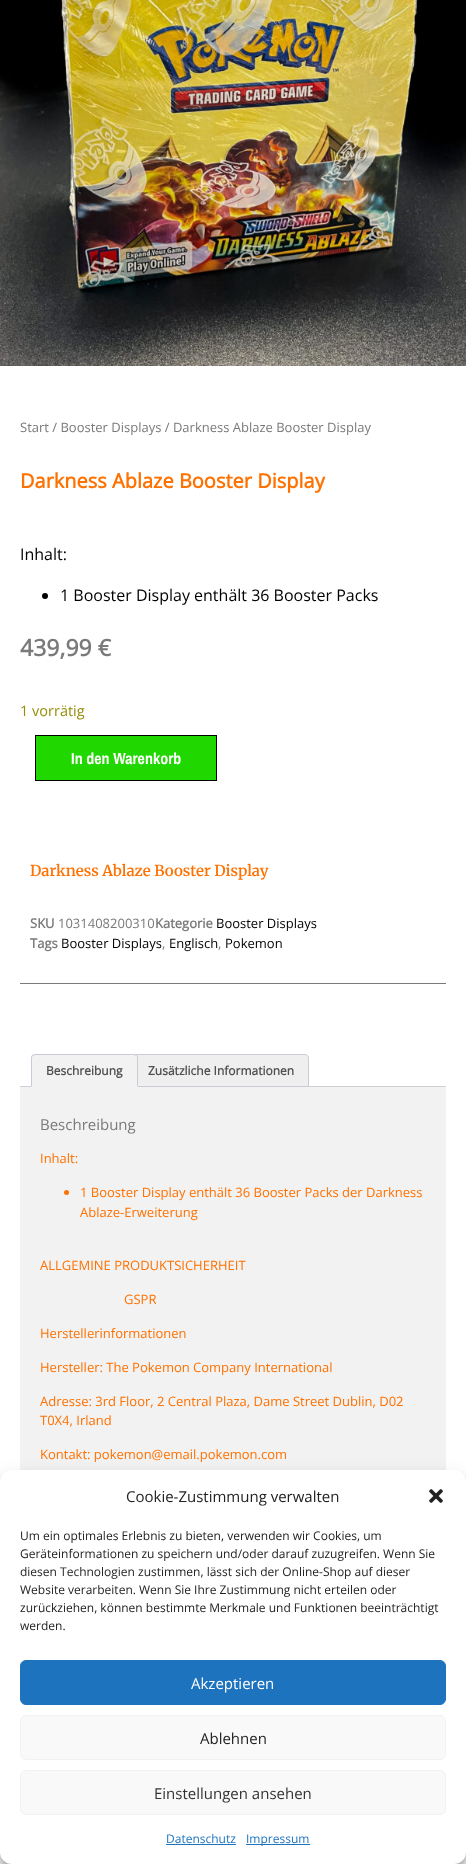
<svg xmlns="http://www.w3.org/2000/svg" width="466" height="1864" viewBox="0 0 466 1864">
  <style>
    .t1 { font: 13px Open Sans; fill: #7a7a7a; }
    .t2 { font: bold 20px Open Sans; fill: #ff7100; }
    .t3 { font: 16px Open Sans; fill: #000; }
    .t4 { font: bold 23px Open Sans; fill: #7a7a7a; }
    .t5 { font: 14.5px Open Sans; fill: #958e09; }
    .t6 { font: bold 16px Archivo Narrow; fill: #fff; }
    .t7 { font: 600 15px Merriweather; fill: #ff7100; }
    .t8 { font: bold 13px Open Sans; fill: #7a7a7a; }
    .t9 { font: 13px Open Sans; fill: #000; }
    .t10 { font: bold 12px Open Sans; fill: #515151; }
    .t11 { font: 15px Open Sans; fill: #7a7a7a; }
    .t12 { font: 13px Open Sans; fill: #ff7100; }
    .t13 { font: 15px Open Sans; fill: #222; }
    .t14 { font: 12px Open Sans; fill: #222; }
    .t15 { font: 15px Open Sans; fill: #fff; }
    .t16 { font: 15px Open Sans; fill: #333; }
    .t17 { font: 12px Open Sans; fill: #1e73be; }
  </style>
  <rect width="100%" height="100%" fill="#fff"/>
  <image x="0" y="0" width="466" height="366" href="images/1.png"/>
  <text x="20" y="432" class="t1">Start / Booster Displays / Darkness Ablaze Booster Display</text>
  <text x="20" y="488" class="t2">Darkness Ablaze Booster Display</text>
  <text x="20" y="560" class="t3">Inhalt:</text>
  <circle cx="45" cy="596" r="3" fill="#000"/>
  <text x="60" y="601" class="t3">1 Booster Display enthält 36 Booster Packs</text>
  <text x="20" y="656" class="t4">439,99 €</text>
  <text x="20" y="716" class="t5">1 vorrätig</text>
  <rect x="35.5" y="735.5" width="181" height="45" fill="#20d700" stroke="#000"/>
  <text x="71" y="764" class="t6">In den Warenkorb</text>
  <rect x="20" y="983" width="426" height="1" fill="#7a7a7a"/>
  <text x="30" y="876" class="t7">Darkness Ablaze Booster Display</text>
  <text x="30" y="928" class="t8">SKU</text>
  <text x="58" y="928" class="t1">1031408200310</text>
  <text x="155" y="928" class="t8">Kategorie</text>
  <text x="216" y="928" class="t9">Booster Displays</text>
  <text x="30" y="948" class="t8">Tags</text>
  <text x="61" y="948" class="t9">Booster Displays</text>
  <text x="162" y="948" class="t1">,</text>
  <text x="169" y="948" class="t9">Englisch</text>
  <text x="218" y="948" class="t1">,</text>
  <text x="225" y="948" class="t9">Pokemon</text>
  <rect x="20" y="1086" width="426" height="1" fill="#d3ced2"/>
  <path d="M137 1054.5H305C307 1054.5 308.5 1056 308.5 1058V1086.5H133.5V1058C133.5 1056 135 1054.5 137 1054.5Z" fill="#efefef" stroke="#cfc8d8"/>
  <path d="M35 1054H134C136 1054 138 1056 138 1058V1087H31V1058C31 1056 33 1054 35 1054Z" fill="#f2f2f2"/>
  <path d="M35 1054L32 1055L33 1056L35 1055H134L136 1056L137 1055L134 1054Z" fill="#cfc8d8"/>
  <path d="M138 1087V1058C138 1057 137.5 1056 137 1055L136 1056C137 1056 137 1057 137 1058V1086Z" fill="#cfc8d8"/>
  <path d="M138 1087L137 1086H32L31 1087Z" fill="#f2f2f2"/>
  <path d="M31 1087L32 1086V1058C32 1057 32 1056 33 1056L32 1055C31.5 1056 31 1057 31 1058Z" fill="#cfc8d8"/>
  <text x="46" y="1075" class="t10">Beschreibung</text>
  <text x="148" y="1075" class="t10">Zusätzliche Informationen</text>
  <rect x="20" y="1087" width="426" height="383" fill="#f2f2f2"/>
  <text x="40" y="1130" class="t11">Beschreibung</text>
  <text x="40" y="1163" class="t12">Inhalt:</text>
  <circle cx="66.5" cy="1192.5" r="2.5" fill="#ff7100"/>
  <text x="80" y="1197" class="t12">1 Booster Display enthält 36 Booster Packs der Darkness</text>
  <text x="80" y="1217" class="t12">Ablaze-Erweiterung</text>
  <text x="40" y="1270" class="t12">ALLGEMINE PRODUKTSICHERHEIT</text>
  <text x="124" y="1304" class="t12">GSPR</text>
  <text x="40" y="1338" class="t12">Herstellerinformationen</text>
  <text x="40" y="1372" class="t12">Hersteller: The Pokemon Company International</text>
  <text x="40" y="1406" class="t12">Adresse: 3rd Floor, 2 Central Plaza, Dame Street Dublin, D02</text>
  <text x="40" y="1425" class="t12">T0X4, Irland</text>
  <text x="40" y="1459" class="t12">Kontakt: pokemon@email.pokemon.com</text>
  <rect x="0" y="1476" width="466" height="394" rx="12" fill="#0000003b" filter="blur(3px)"/>
  <rect x="0" y="1480" width="466" height="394" rx="12" fill="#00000030" filter="blur(10px)"/>
  <rect x="0" y="1470" width="466" height="394" rx="12" fill="#fff"/>
  <text x="126" y="1502" class="t13">Cookie-Zustimmung verwalten</text>
  <image x="429" y="1489" width="14" height="14" href="images/2.png"/>
  <text x="20" y="1540" class="t14">Um ein optimales Erlebnis zu bieten, verwenden wir Cookies, um</text>
  <text x="20" y="1558" class="t14">Geräteinformationen zu speichern und/oder darauf zuzugreifen. Wenn Sie</text>
  <text x="20" y="1576" class="t14">diesen Technologien zustimmen, lässt sich der Online-Shop auf dieser</text>
  <text x="20" y="1594" class="t14">Website verarbeiten. Wenn Sie Ihre Zustimmung nicht erteilen oder</text>
  <text x="20" y="1612" class="t14">zurückziehen, können bestimmte Merkmale und Funktionen beeinträchtigt</text>
  <text x="20" y="1630" class="t14">werden.</text>
  <rect x="20.5" y="1660.5" width="425" height="44" rx="5.5" fill="#1e73be" stroke="#1e73be"/>
  <text x="191" y="1689" class="t15">Akzeptieren</text>
  <rect x="20.5" y="1715.5" width="425" height="44" rx="5.5" fill="#f9f9f9" stroke="#f2f2f2"/>
  <text x="200" y="1744" class="t13">Ablehnen</text>
  <rect x="20.5" y="1770.5" width="425" height="44" rx="5.5" fill="#f9f9f9" stroke="#f2f2f2"/>
  <text x="154" y="1799" class="t16">Einstellungen ansehen</text>
  <text x="166" y="1843" class="t17">Datenschutz</text>
  <rect x="166" y="1844" width="70" height="1" fill="#1e73be"/>
  <rect x="246" y="1844" width="64" height="1" fill="#1e73be"/>
  <text x="246" y="1843" class="t17">Impressum</text>
</svg>
